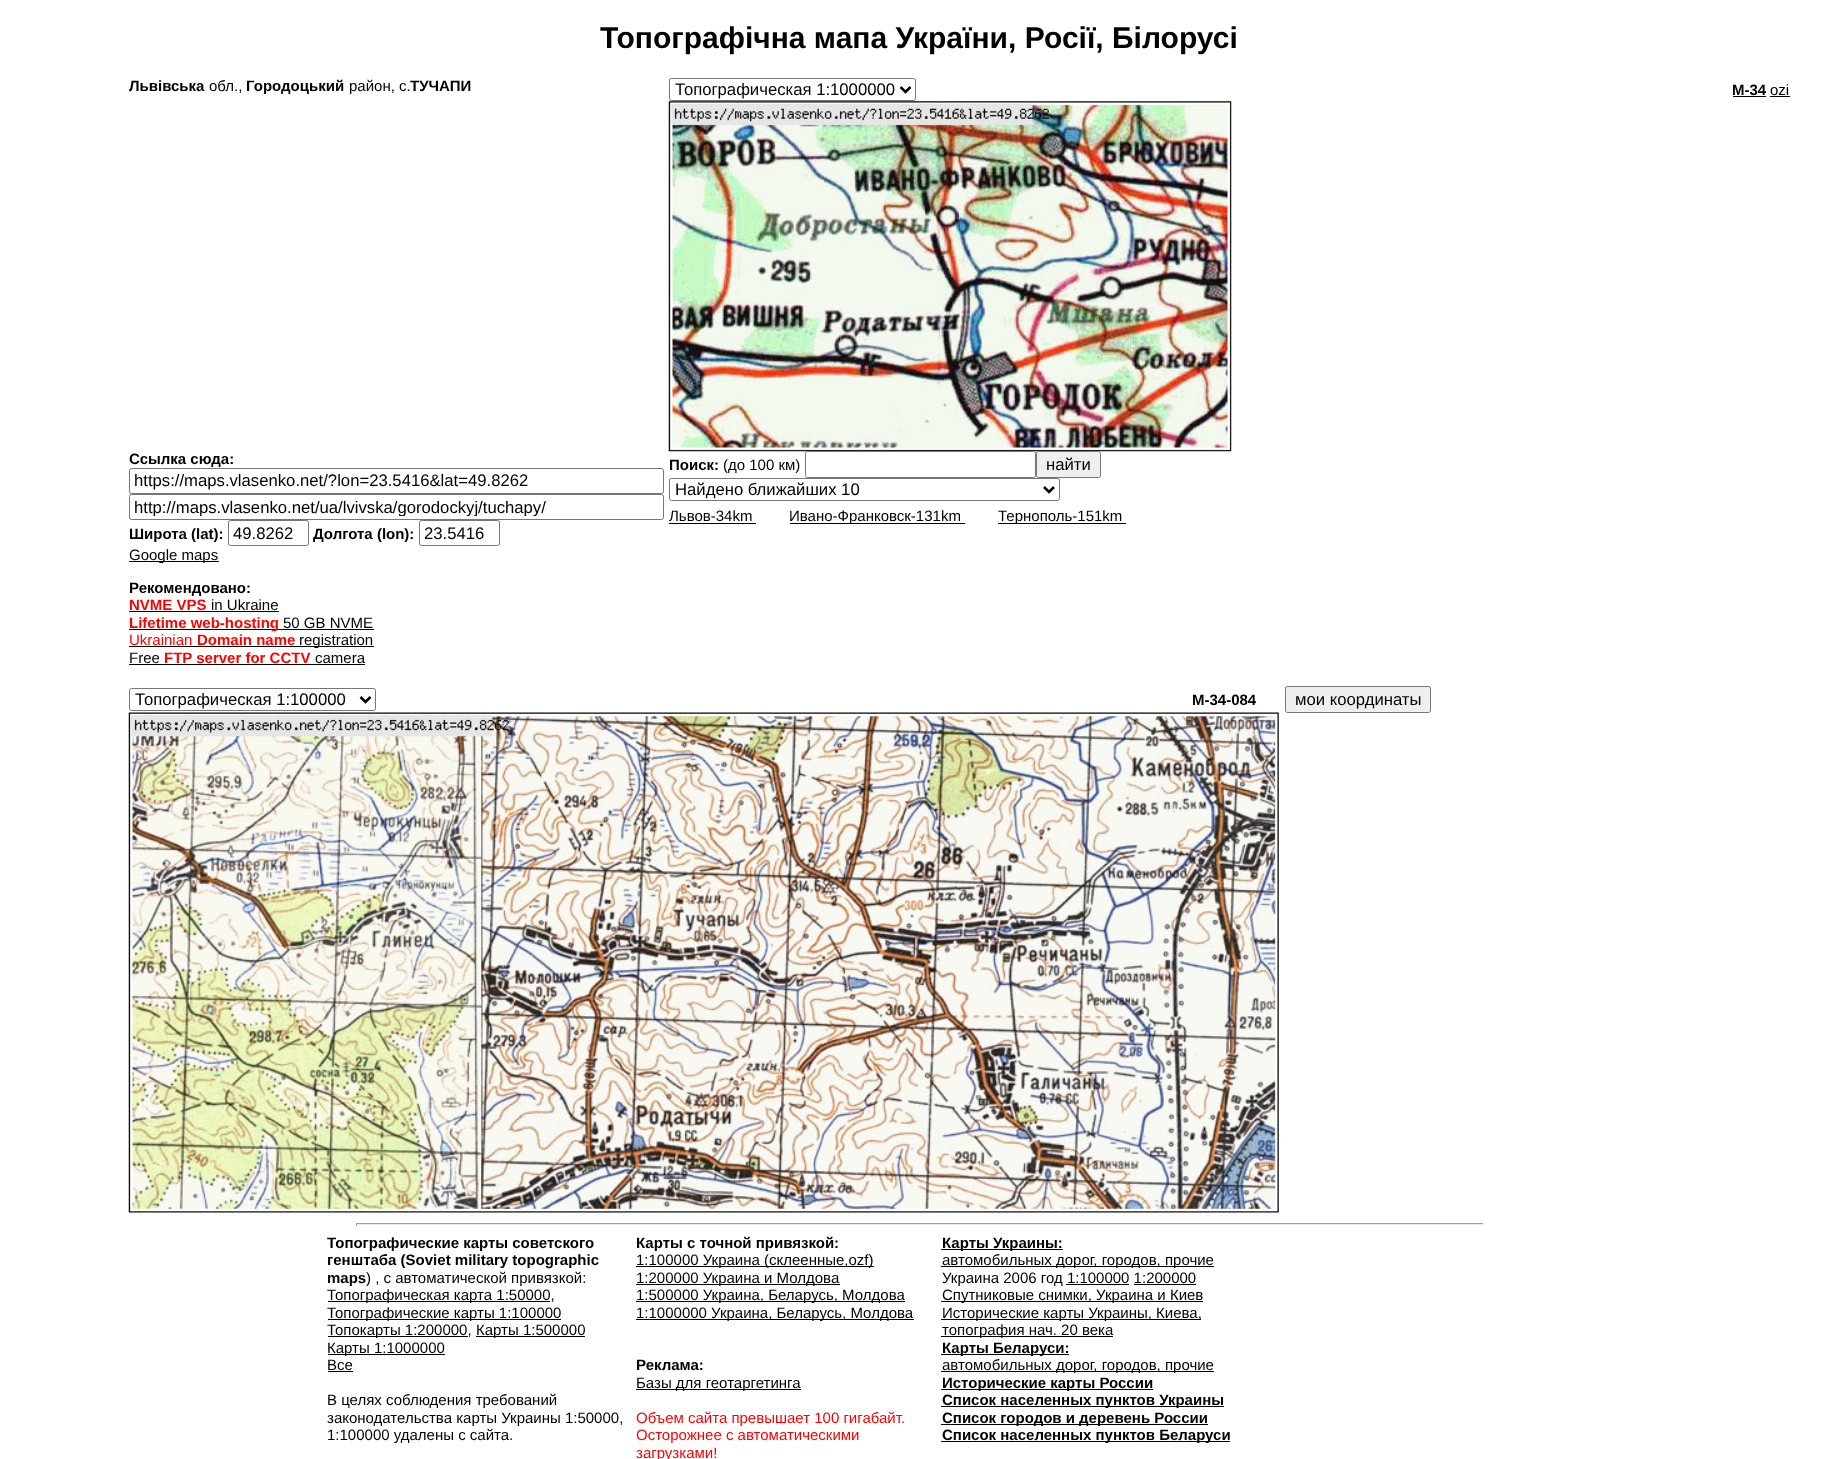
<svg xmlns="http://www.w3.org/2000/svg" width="1838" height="1459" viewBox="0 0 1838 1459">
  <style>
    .t1 { font: bold 30px Liberation Sans; fill: #000; }
    .t2 { font: bold 15px Liberation Sans; fill: #000; }
    .t3 { font: 15px Liberation Sans; fill: #000; }
    .t4 { font: 16.7px Liberation Sans; fill: #000; }
    .t5 { font: bold 15px Liberation Sans; fill: #f00; }
    .t6 { font: 15px Liberation Sans; fill: #f00; }
  </style>
  <defs>
    <clipPath id="clip1"><rect x="134" y="498" width="525" height="18"/></clipPath>
  </defs>
  <rect width="100%" height="100%" fill="#fff"/>
  <text x="600" y="48" class="t1">Топографічна мапа України, Росії, Білорусі</text>
  <text x="129" y="91" class="t2">Львівська</text>
  <text x="209" y="91" class="t3">обл.,</text>
  <text x="246" y="91" class="t2">Городоцький</text>
  <text x="349" y="91" class="t3">район, с.</text>
  <text x="410" y="91" class="t2">ТУЧАПИ</text>
  <text x="129" y="464" class="t2">Ссылка сюда:</text>
  <rect x="129.5" y="468.5" width="534" height="25" rx="2" fill="none" stroke="#767676"/>
  <text x="134" y="486" class="t4">https://maps.vlasenko.net/?lon=23.5416&amp;lat=49.8262</text>
  <rect x="129.5" y="494.5" width="534" height="25" rx="2" fill="none" stroke="#767676"/>
  <g clip-path="url(#clip1)">
    <text x="134" y="513" class="t4">http://maps.vlasenko.net/ua/lvivska/gorodockyj/tuchapy/</text>
  </g>
  <text x="129" y="539" class="t2">Широта (lat):</text>
  <rect x="228.5" y="520.5" width="80" height="25" rx="2" fill="none" stroke="#767676"/>
  <text x="233" y="539" class="t4">49.8262</text>
  <text x="313" y="539" class="t2">Долгота (lon):</text>
  <rect x="419.5" y="520.5" width="80" height="25" rx="2" fill="none" stroke="#767676"/>
  <text x="424" y="539" class="t4">23.5416</text>
  <rect x="129" y="561" width="90" height="1" fill="#000"/>
  <text x="129" y="560" class="t3">Google maps</text>
  <text x="129" y="593" class="t2">Рекомендовано:</text>
  <text x="129" y="610" class="t5">NVME VPS</text>
  <rect x="129" y="611" width="150" height="1" fill="#000"/>
  <text x="211" y="610" class="t3">in Ukraine</text>
  <rect x="129" y="629" width="245" height="1" fill="#000"/>
  <text x="129" y="628" class="t5">Lifetime web-hosting</text>
  <text x="283" y="628" class="t3">50 GB NVME</text>
  <text x="129" y="645" class="t6">Ukrainian</text>
  <text x="197" y="645" class="t5">Domain name</text>
  <rect x="129" y="646" width="245" height="1" fill="#000"/>
  <text x="299" y="645" class="t3">registration</text>
  <text x="129" y="663" class="t3">Free</text>
  <text x="164" y="663" class="t5">FTP server for CCTV</text>
  <text x="315" y="663" class="t3">camera</text>
  <rect x="129" y="664" width="236" height="1" fill="#000"/>
  <rect x="669.5" y="78.5" width="246" height="22" rx="2" fill="none" stroke="#767676"/>
  <path d="M900.5 87L905.5 92L910.5 87" fill="none" stroke="#000" stroke-width="2.5"/>
  <text x="675" y="95" class="t4">Топографическая 1:1000000</text>
  <text x="1732" y="95" class="t2">M-34</text>
  <rect x="1733" y="96" width="33" height="1" fill="#000"/>
  <text x="1770" y="95" class="t3">ozi</text>
  <rect x="1770" y="96" width="20" height="1" fill="#000"/>
  <image x="668" y="101" width="564" height="351" href="images/1.png"/>
  <text x="669" y="470" class="t2">Поиск:</text>
  <text x="723" y="470" class="t3">(до 100 км)</text>
  <rect x="805.5" y="451.5" width="230" height="26" rx="2" fill="#fff" stroke="#767676"/>
  <rect x="1036.5" y="451.5" width="64" height="26" rx="2" fill="#efefef" stroke="#767676"/>
  <text x="1046" y="470" class="t4">найти</text>
  <rect x="669.5" y="478.5" width="390" height="22" rx="2" fill="none" stroke="#767676"/>
  <path d="M1044 487L1049 492L1054 487" fill="none" stroke="#000" stroke-width="2.5"/>
  <text x="675" y="495" class="t4">Найдено ближайших 10</text>
  <text x="669" y="521" class="t3">Львов-34km</text>
  <rect x="669" y="523" width="87" height="1" fill="#000"/>
  <rect x="790" y="523" width="175" height="1" fill="#000"/>
  <text x="789" y="521" class="t3">Ивано-Франковск-131km</text>
  <rect x="998" y="523" width="128" height="1" fill="#000"/>
  <text x="998" y="521" class="t3">Тернополь-151km</text>
  <rect x="129.5" y="688.5" width="246" height="22" rx="2" fill="none" stroke="#767676"/>
  <path d="M360.5 697L365.5 702L370.5 697" fill="none" stroke="#000" stroke-width="2.5"/>
  <text x="135" y="705" class="t4">Топографическая 1:100000</text>
  <text x="1192" y="705" class="t2">M-34-084</text>
  <rect x="1285.5" y="686.5" width="145" height="26" rx="2" fill="#efefef" stroke="#767676"/>
  <text x="1295" y="705" class="t4">мои координаты</text>
  <image x="128" y="712" width="1151" height="501" href="images/2.png"/>
  <rect x="356" y="1223" width="1128" height="1" fill="#9f9f9f"/>
  <rect x="1483" y="1223" width="1" height="3" fill="#eee"/>
  <rect x="356" y="1224" width="1128" height="1" fill="#eee"/>
  <rect x="356" y="1223" width="1" height="3" fill="#9f9f9f"/>
  <text x="327" y="1248" class="t2">Топографические карты советского</text>
  <text x="327" y="1265" class="t2">генштаба (Soviet military topographic</text>
  <text x="327" y="1283" class="t2">maps</text>
  <text x="366" y="1283" class="t3">) , с автоматической привязкой:</text>
  <rect x="328" y="1301" width="222" height="1" fill="#000"/>
  <text x="327" y="1300" class="t3">Топографическая карта 1:50000,</text>
  <rect x="328" y="1319" width="233" height="1" fill="#000"/>
  <text x="327" y="1318" class="t3">Топографические карты 1:100000</text>
  <rect x="328" y="1336" width="140" height="1" fill="#000"/>
  <text x="327" y="1335" class="t3">Топокарты 1:200000,</text>
  <rect x="476" y="1336" width="109" height="1" fill="#000"/>
  <text x="476" y="1335" class="t3">Карты 1:500000</text>
  <rect x="328" y="1354" width="117" height="1" fill="#000"/>
  <text x="327" y="1353" class="t3">Карты 1:1000000</text>
  <text x="327" y="1370" class="t3">Все</text>
  <rect x="328" y="1371" width="25" height="1" fill="#000"/>
  <text x="327" y="1405" class="t3">В целях соблюдения требований</text>
  <text x="327" y="1423" class="t3">законодательства карты Украины 1:50000,</text>
  <text x="327" y="1440" class="t3">1:100000 удалены с сайта.</text>
  <text x="636" y="1248" class="t2">Карты с точной привязкой:</text>
  <rect x="636" y="1266" width="238" height="1" fill="#000"/>
  <text x="636" y="1265" class="t3">1:100000 Украина (cклеенные,ozf)</text>
  <rect x="636" y="1284" width="204" height="1" fill="#000"/>
  <text x="636" y="1283" class="t3">1:200000 Украина и Молдова</text>
  <rect x="636" y="1301" width="269" height="1" fill="#000"/>
  <text x="636" y="1300" class="t3">1:500000 Украина, Беларусь, Молдова</text>
  <rect x="636" y="1319" width="278" height="1" fill="#000"/>
  <text x="636" y="1318" class="t3">1:1000000 Украина, Беларусь, Молдова</text>
  <text x="636" y="1370" class="t2">Реклама:</text>
  <rect x="636" y="1389" width="165" height="1" fill="#000"/>
  <text x="636" y="1388" class="t3">Базы для геотаргетинга</text>
  <text x="636" y="1423" class="t6">Объем сайта превышает 100 гигабайт.</text>
  <text x="636" y="1440" class="t6">Осторожнее с автоматическими</text>
  <text x="636" y="1458" class="t6">загрузками!</text>
  <rect x="941" y="1249" width="122" height="1" fill="#000"/>
  <text x="942" y="1248" class="t2">Карты Украины:</text>
  <rect x="941" y="1266" width="273" height="1" fill="#000"/>
  <text x="942" y="1265" class="t3">автомобильных дорог, городов, прочие</text>
  <text x="942" y="1283" class="t3">Украина 2006 год 1:100000 1:200000</text>
  <rect x="1066" y="1284" width="63" height="1" fill="#000"/>
  <rect x="1134" y="1284" width="62" height="1" fill="#000"/>
  <rect x="941" y="1301" width="262" height="1" fill="#000"/>
  <text x="942" y="1300" class="t3">Спутниковые снимки, Украина и Киев</text>
  <rect x="941" y="1319" width="260" height="1" fill="#000"/>
  <text x="942" y="1318" class="t3">Исторические карты Украины, Киева,</text>
  <rect x="941" y="1336" width="172" height="1" fill="#000"/>
  <text x="942" y="1335" class="t3">топография нач. 20 века</text>
  <rect x="941" y="1354" width="128" height="1" fill="#000"/>
  <text x="942" y="1353" class="t2">Карты Беларуси:</text>
  <rect x="941" y="1371" width="273" height="1" fill="#000"/>
  <text x="942" y="1370" class="t3">автомобильных дорог, городов, прочие</text>
  <rect x="941" y="1389" width="212" height="1" fill="#000"/>
  <text x="942" y="1388" class="t2">Исторические карты России</text>
  <rect x="941" y="1406" width="283" height="1" fill="#000"/>
  <text x="942" y="1405" class="t2">Список населенных пунктов Украины</text>
  <rect x="941" y="1424" width="267" height="1" fill="#000"/>
  <text x="942" y="1423" class="t2">Список городов и деревень России</text>
  <rect x="941" y="1441" width="289" height="1" fill="#000"/>
  <text x="942" y="1440" class="t2">Список населенных пунктов Беларуси</text>
</svg>
